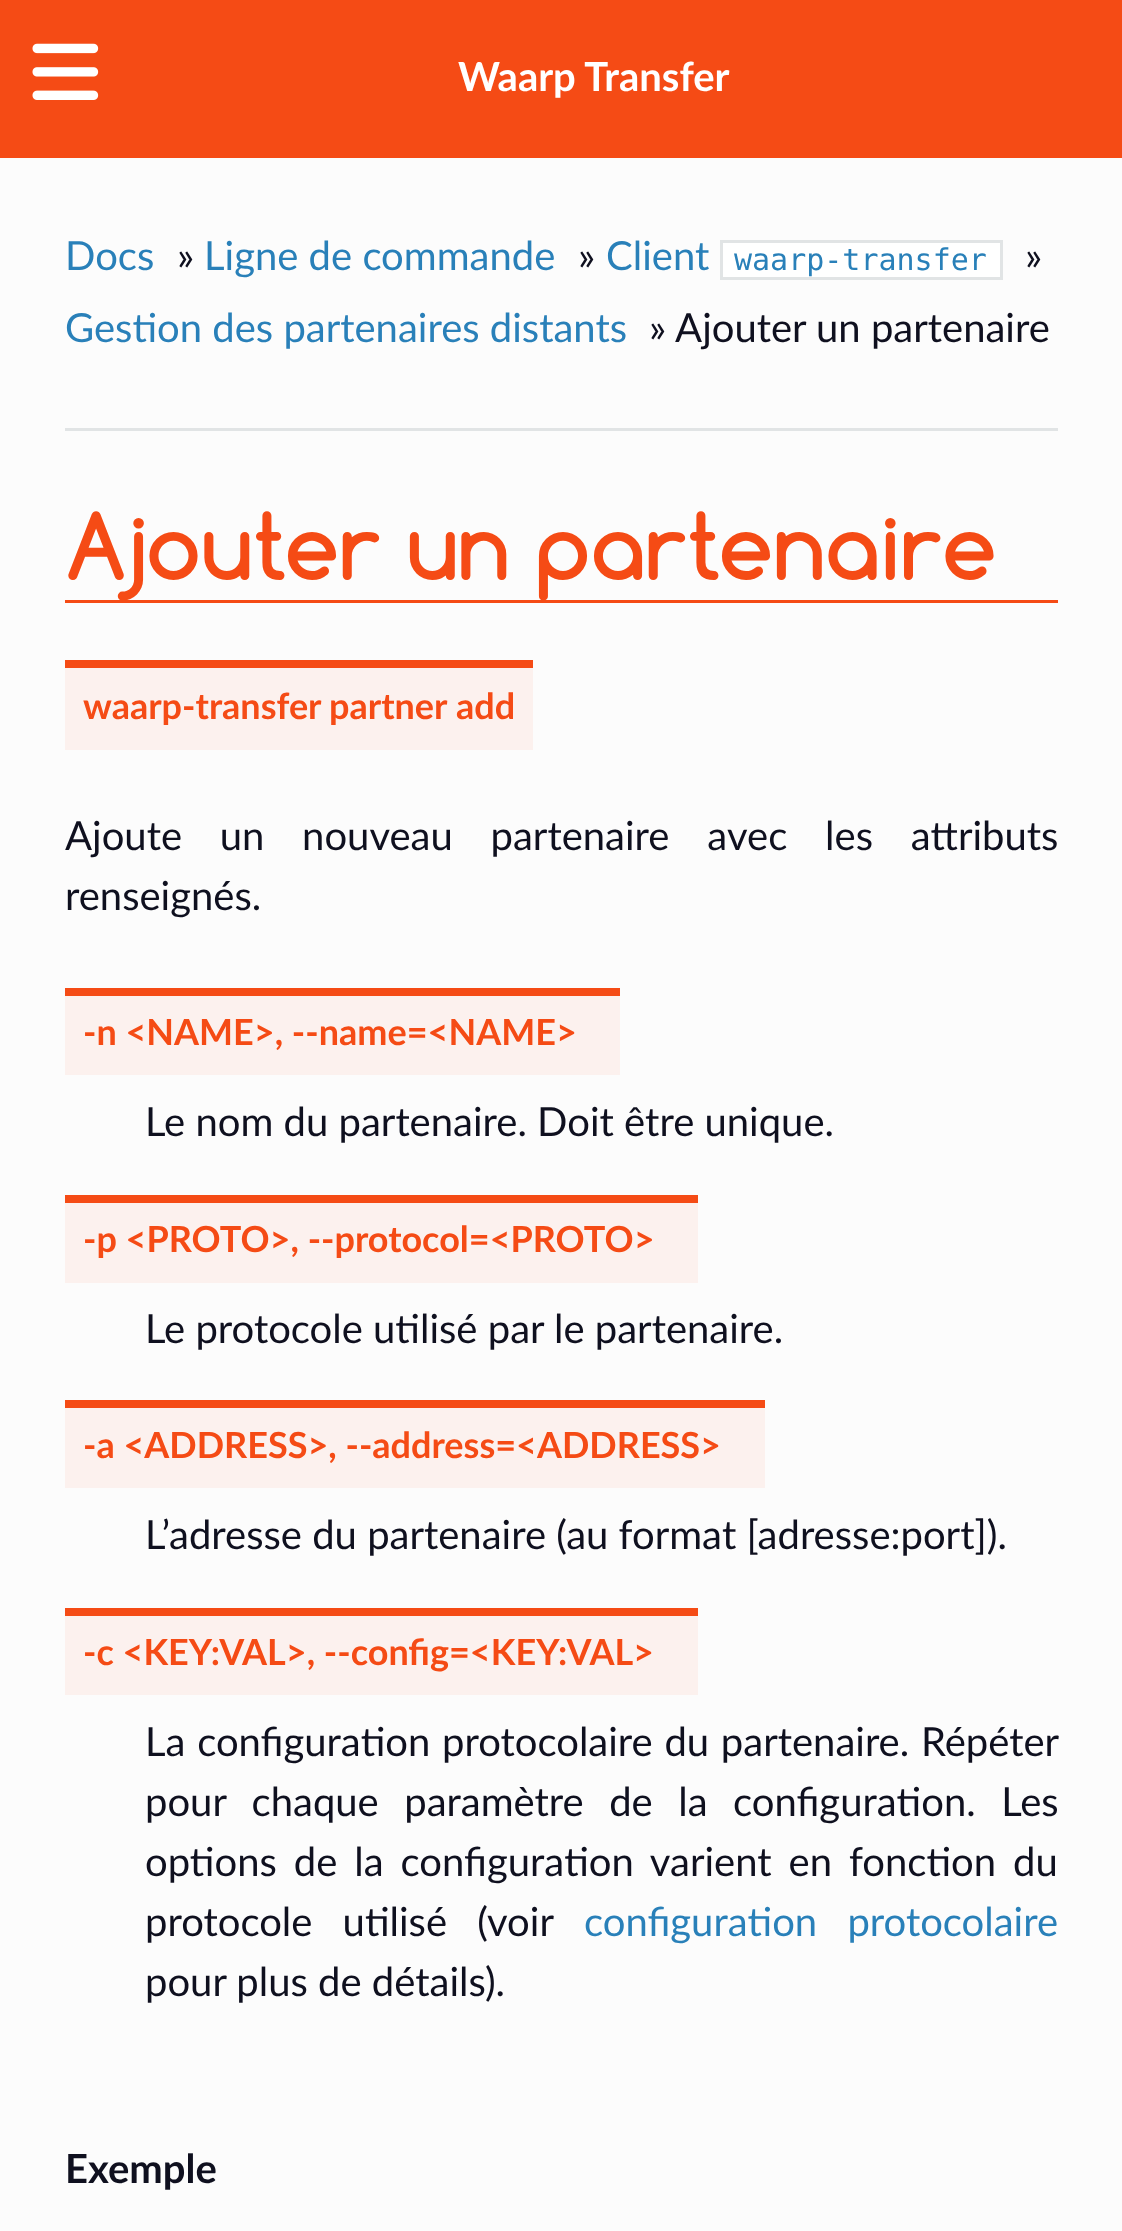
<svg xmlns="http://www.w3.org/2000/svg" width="1122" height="2231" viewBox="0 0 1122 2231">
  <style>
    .t1 { font: bold 40px Lato; fill: #fff; }
    .t2 { font: 40px Lato; fill: #2980b9; }
    .t3 { font: 40px Lato; fill: #0f101f; }
    .t4 { font: 30px DejaVu Sans Mono; fill: #2980b9; }
    .t5 { font: bold 88px Comfortaa; fill: #f54b15; }
    .t6 { font: bold 36px Lato; fill: #f54b15; }
    .t7 { font: bold 40px Lato; fill: #0f101f; }
  </style>
  <rect width="100%" height="100%" fill="#fcfcfc"/>
  <rect x="0" y="0" width="1122" height="158" fill="#f54b15"/>
  <image x="32" y="43" width="67" height="57" href="images/1.png"/>
  <text x="458" y="91" class="t1">Waarp Transfer</text>
  <text x="65" y="270" class="t2">Docs</text>
  <text x="177" y="270" class="t3">»</text>
  <text x="204" y="270" class="t2">Ligne de commande</text>
  <text x="578" y="270" class="t3">»</text>
  <text x="606" y="270" class="t2">Client</text>
  <rect x="721.5" y="241.5" width="280" height="37" fill="#fff" stroke="#e1e4e5" stroke-width="3"/>
  <text x="734" y="270" class="t4">waarp-transfer</text>
  <text x="1025" y="270" class="t3">»</text>
  <text x="65" y="342" class="t2">Gestion des partenaires distants</text>
  <text x="649" y="342" class="t3">» Ajouter un partenaire</text>
  <rect x="65" y="428" width="993" height="3" fill="#e1e4e5"/>
  <rect x="65" y="600" width="993" height="3" fill="#f54b15"/>
  <text x="65" y="580" class="t5">Ajouter un partenaire</text>
  <rect x="65" y="668" width="468" height="82" fill="#fcf1ee"/>
  <rect x="65" y="660" width="468" height="8" fill="#f54b15"/>
  <text x="83" y="719" class="t6">waarp-transfer</text>
  <text x="329" y="719" class="t6">partner</text>
  <text x="456" y="719" class="t6">add</text>
  <text x="65" y="850" word-spacing="27.5" class="t3">Ajoute un nouveau partenaire avec les attributs</text>
  <text x="65" y="910" class="t3">renseignés.</text>
  <rect x="65" y="996" width="555" height="79" fill="#fcf1ee"/>
  <rect x="65" y="988" width="555" height="8" fill="#f54b15"/>
  <text x="83" y="1045" class="t6">-n &lt;NAME&gt;, --name=&lt;NAME&gt;</text>
  <text x="145" y="1136" class="t3">Le nom du partenaire. Doit être unique.</text>
  <rect x="65" y="1203" width="633" height="80" fill="#fcf1ee"/>
  <rect x="65" y="1195" width="633" height="8" fill="#f54b15"/>
  <text x="83" y="1252" class="t6">-p &lt;PROTO&gt;, --protocol=&lt;PROTO&gt;</text>
  <text x="145" y="1343" class="t3">Le protocole utilisé par le partenaire.</text>
  <rect x="65" y="1408" width="700" height="80" fill="#fcf1ee"/>
  <rect x="65" y="1400" width="700" height="8" fill="#f54b15"/>
  <text x="83" y="1458" class="t6">-a &lt;ADDRESS&gt;, --address=&lt;ADDRESS&gt;</text>
  <text x="145" y="1549" class="t3">L’adresse du partenaire (au format [adresse:port]).</text>
  <rect x="65" y="1616" width="633" height="79" fill="#fcf1ee"/>
  <rect x="65" y="1608" width="633" height="8" fill="#f54b15"/>
  <text x="83" y="1665" class="t6">-c &lt;KEY:VAL&gt;, --config=&lt;KEY:VAL&gt;</text>
  <text x="145" y="1756" word-spacing="1.5" class="t3">La configuration protocolaire du partenaire. Répéter</text>
  <text x="145" y="1816" word-spacing="15.25" class="t3">pour chaque paramètre de la configuration. Les</text>
  <text x="145" y="1876" word-spacing="6.75" class="t3">options de la configuration varient en fonction du</text>
  <text x="145" y="1936" word-spacing="20" class="t3">protocole utilisé (voir</text>
  <text x="584" y="1936" word-spacing="20" class="t2">configuration protocolaire</text>
  <text x="145" y="1996" class="t3">pour plus de détails).</text>
  <text x="65" y="2183" class="t7">Exemple</text>
</svg>
